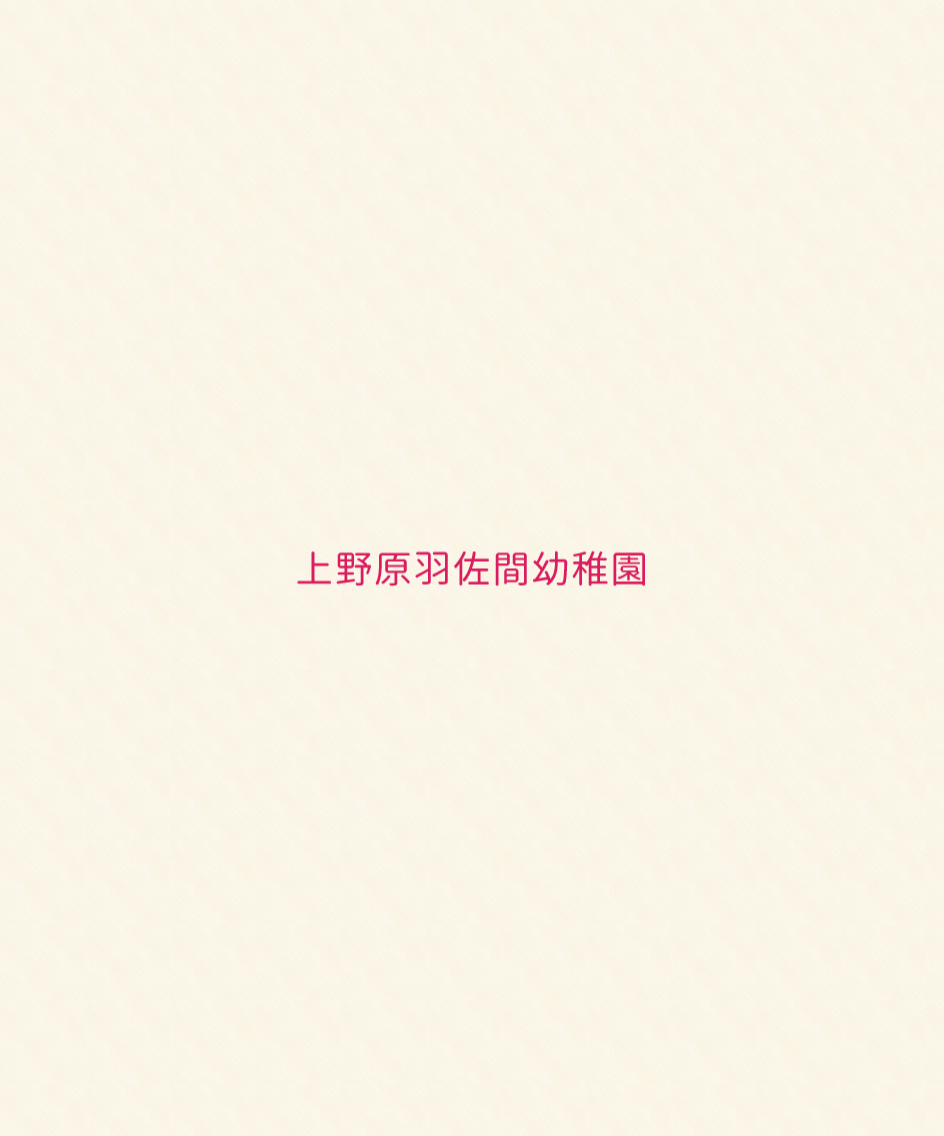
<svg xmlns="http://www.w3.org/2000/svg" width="944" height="1136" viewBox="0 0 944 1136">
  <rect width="100%" height="100%" fill="#fff"/>
  <image x="0" y="504" width="944" height="632" href="images/1.png"/>
  <image x="0" y="0" width="944" height="504" href="images/2.png"/>
  <image x="297" y="550" width="348" height="37" href="images/3.png"/>
</svg>
